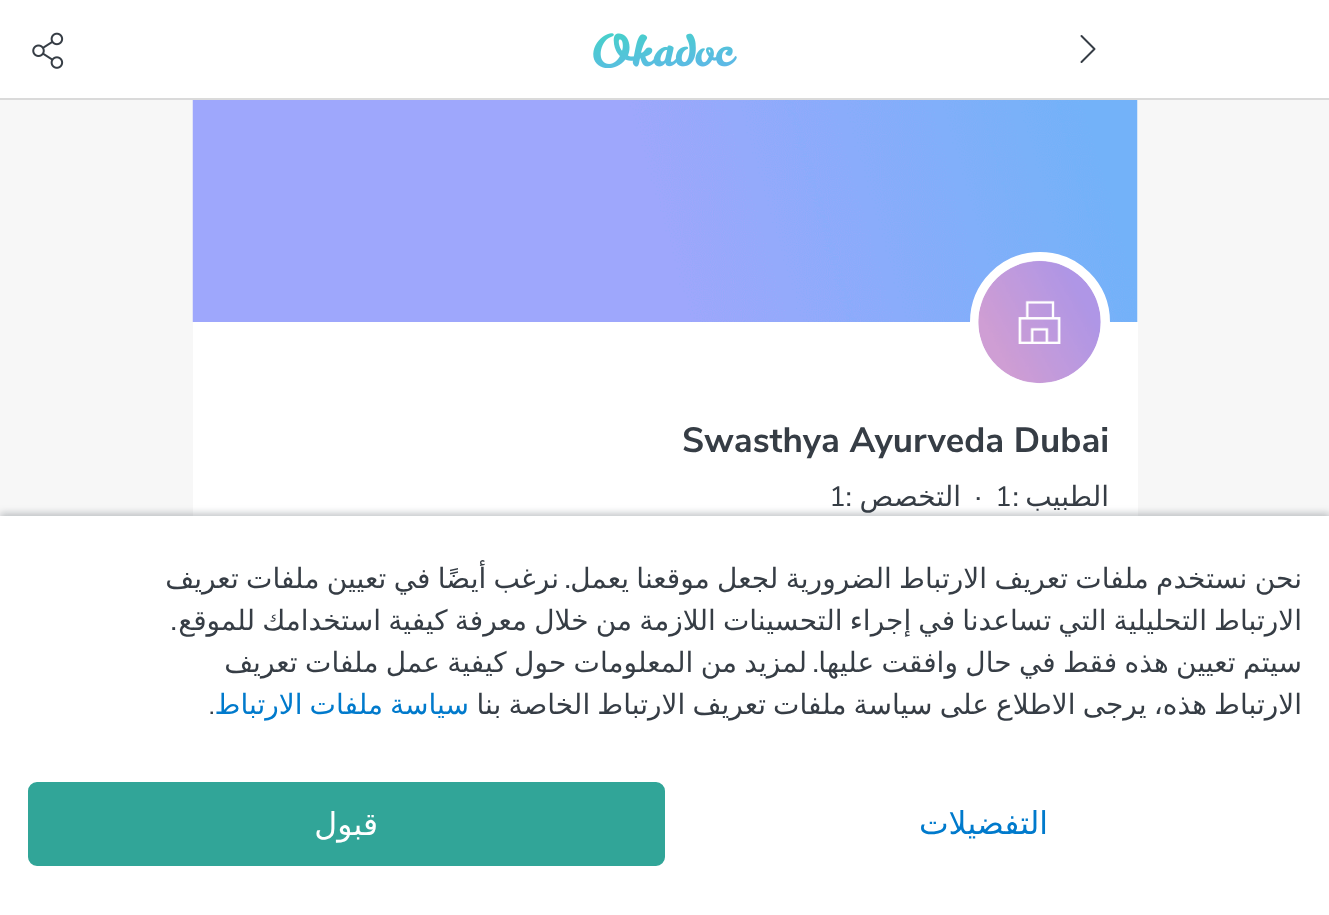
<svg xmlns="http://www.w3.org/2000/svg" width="1329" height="915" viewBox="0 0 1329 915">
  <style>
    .t1 { font: bold 35px Nunito Sans; fill: #363d45; }
    .t2 { font: 28px DejaVu Sans; direction: rtl; fill: #363d45; }
    .t3 { font: 28px Nunito Sans; direction: rtl; fill: #363d45; }
    .t4 { font: 28px Nunito Sans; fill: #363d45; }
    .t5 { font: 28px DejaVu Sans; direction: rtl; fill: #007acc; }
    .t6 { font: 24px Nunito Sans; fill: #363d45; }
    .t7 { font: 31.5px DejaVu Sans; direction: rtl; fill: #007acc; }
    .t8 { font: 31.5px DejaVu Sans; direction: rtl; fill: #fff; }
  </style>
  <rect width="100%" height="100%" fill="#f7f7f7"/>
  <rect x="0" y="0" width="1329" height="98" fill="#fff"/>
  <rect x="0" y="98" width="1329" height="2" fill="#dadada"/>
  <path d="M1081.5 36L1094.5 49L1081.5 62" fill="none" stroke="#363d45" stroke-width="2" stroke-linecap="round" stroke-linejoin="round"/>
  <image x="593" y="33" width="144" height="35" href="images/1.png"/>
  <rect x="193" y="322" width="945" height="194" fill="#fff"/>
  <image x="192" y="100" width="946" height="222" href="images/2.png"/>
  <circle cx="1040" cy="322" r="65.5" fill="#fff" stroke="#fff" stroke-width="9"/>
  <image x="978" y="260" width="123" height="124" href="images/3.png"/>
  <image x="32" y="32" width="32" height="37" href="images/4.png"/>
  <text x="682" y="452" class="t1">Swasthya Ayurveda Dubai</text>
  <text x="1109" y="506" class="t2">الطبيب</text>
  <text x="1019" y="506" class="t3">:</text>
  <text x="995" y="506" class="t4">1</text>
  <text x="975" y="506" class="t4">·</text>
  <text x="961" y="506" class="t2">التخصص</text>
  <text x="852" y="506" class="t3">:</text>
  <text x="829" y="506" class="t4">1</text>
  <rect x="0" y="513" width="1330" height="399" fill="#4048524d" filter="blur(3.5px)"/>
  <rect x="0" y="516" width="1329" height="399" fill="#fff"/>
  <text x="1302" y="588" word-spacing="-1.5" class="t2">نحن نستخدم ملفات تعريف الارتباط الضرورية لجعل موقعنا يعمل</text>
  <text x="571" y="588" class="t3">.</text>
  <text x="559" y="588" word-spacing="-1.5" class="t2">نرغب أيضًا في تعيين ملفات تعريف</text>
  <text x="1302" y="630" word-spacing="-1.75" class="t2">الارتباط التحليلية التي تساعدنا في إجراء التحسينات اللازمة من خلال معرفة كيفية استخدامك للموقع</text>
  <text x="177" y="630" class="t3">.</text>
  <text x="1302" y="672" word-spacing="-1.5" class="t2">سيتم تعيين هذه فقط في حال وافقت عليها</text>
  <text x="807" y="672" word-spacing="-1.5" class="t2">لمزيد من المعلومات حول كيفية عمل ملفات تعريف</text>
  <text x="819" y="672" class="t3">.</text>
  <text x="1302" y="714" word-spacing="-1.75" class="t2">الارتباط هذه، يرجى الاطلاع على سياسة ملفات تعريف الارتباط الخاصة بنا</text>
  <text x="469" y="714" word-spacing="-1.75" class="t5">سياسة ملفات الارتباط</text>
  <text x="209" y="714" class="t6">.</text>
  <text x="1048" y="834" class="t7">التفضيلات</text>
  <rect x="29" y="783" width="635" height="82" rx="8" fill="#31a598" stroke="#31a598" stroke-width="2"/>
  <text x="378" y="835" class="t8">قبول</text>
</svg>
